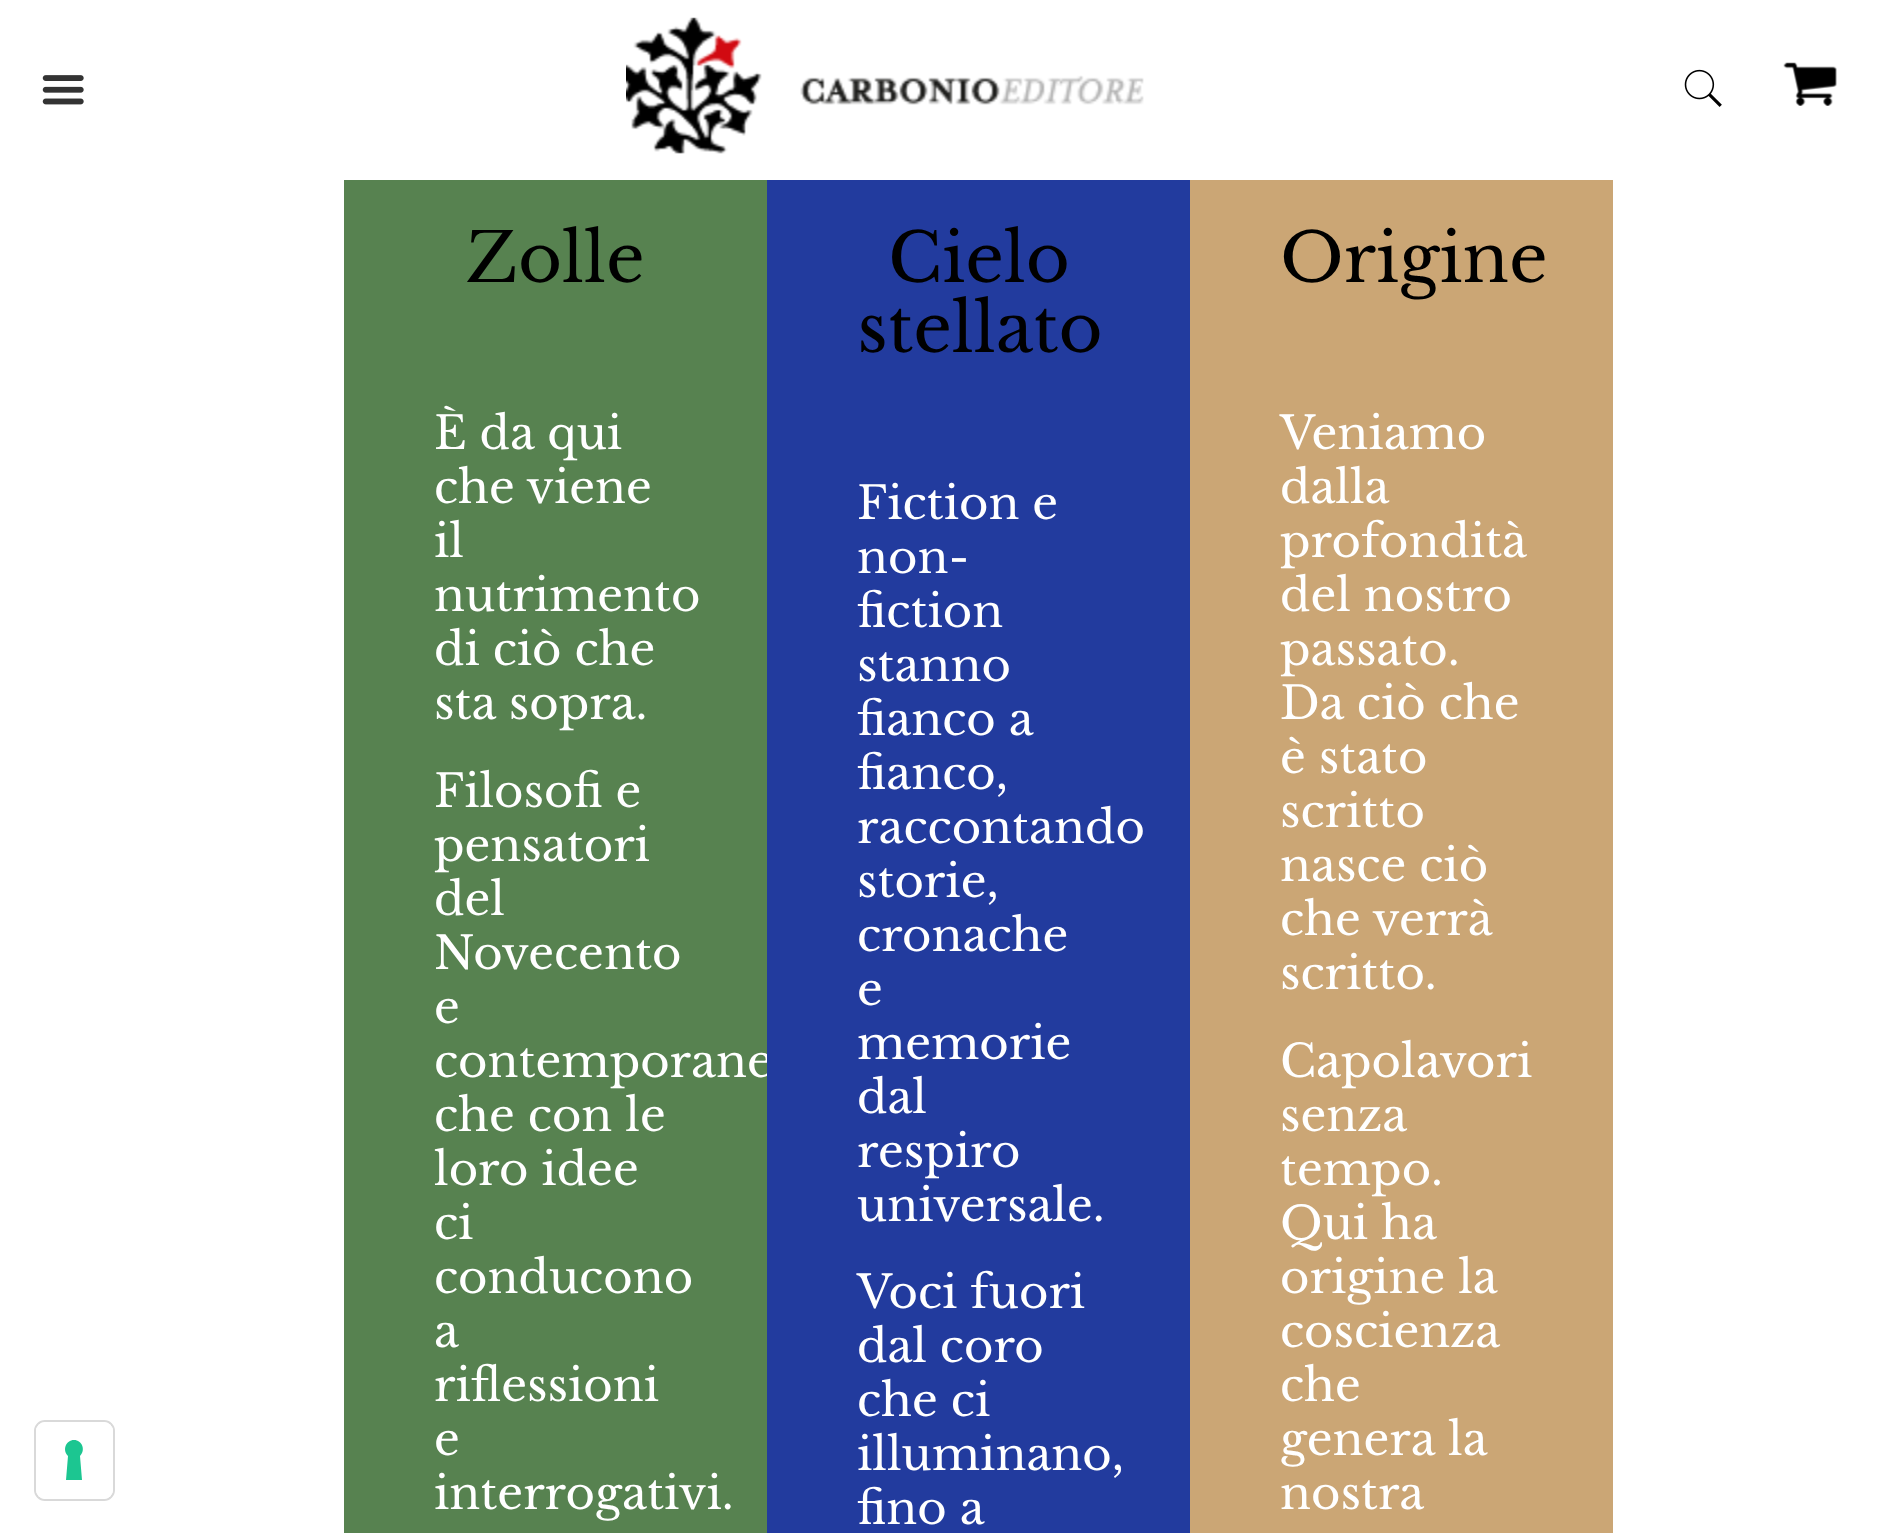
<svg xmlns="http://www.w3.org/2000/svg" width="1888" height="1533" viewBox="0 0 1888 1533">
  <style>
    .t1 { font: 67.5px Libre Baskerville; fill: #000; }
    .t2 { font: 45px Libre Baskerville; fill: #fff; }
  </style>
  <rect width="100%" height="100%" fill="#fff"/>
  <rect x="35" y="1421" width="79" height="79" rx="10" fill="none" stroke="#d9d9d9" stroke-width="2"/>
  <rect x="36" y="1422" width="77" height="77" rx="9" fill="#fff"/>
  <path d="M74 1440C82 1440 86 1450 80 1456L82 1480H66L68 1456C62 1450 66 1440 74 1440Z" fill="#1cc691" fill-rule="evenodd"/>
  <image x="42" y="75" width="42" height="30" href="images/1.png"/>
  <image x="626" y="17" width="518" height="137" href="images/2.png"/>
  <image x="1684" y="69" width="38" height="38" href="images/3.png"/>
  <image x="1783" y="62" width="54" height="44" href="images/4.png"/>
  <rect x="344" y="180" width="423" height="1353" fill="#578250"/>
  <text x="466" y="282" class="t1">Zolle</text>
  <text x="434" y="449" class="t2">È da qui</text>
  <text x="434" y="503" class="t2">che viene</text>
  <text x="434" y="557" class="t2">il</text>
  <text x="434" y="611" class="t2">nutrimento</text>
  <text x="434" y="665" class="t2">di ciò che</text>
  <text x="434" y="719" class="t2">sta sopra.</text>
  <text x="434" y="807" class="t2">Filosofi e</text>
  <text x="434" y="861" class="t2">pensatori</text>
  <text x="434" y="915" class="t2">del</text>
  <text x="434" y="969" class="t2">Novecento</text>
  <text x="434" y="1023" class="t2">e</text>
  <text x="434" y="1077" class="t2">contemporane</text>
  <text x="434" y="1131" class="t2">che con le</text>
  <text x="434" y="1185" class="t2">loro idee</text>
  <text x="434" y="1239" class="t2">ci</text>
  <text x="434" y="1293" class="t2">conducono</text>
  <text x="434" y="1347" class="t2">a</text>
  <text x="434" y="1401" class="t2">riflessioni</text>
  <text x="434" y="1455" class="t2">e</text>
  <text x="434" y="1509" class="t2">interrogativi.</text>
  <rect x="767" y="180" width="423" height="1353" fill="#223b9e"/>
  <text x="888" y="282" class="t1">Cielo</text>
  <text x="857" y="352" class="t1">stellato</text>
  <text x="857" y="519" class="t2">Fiction e</text>
  <text x="857" y="573" class="t2">non-</text>
  <text x="857" y="627" class="t2">fiction</text>
  <text x="857" y="681" class="t2">stanno</text>
  <text x="857" y="735" class="t2">fianco a</text>
  <text x="857" y="789" class="t2">fianco,</text>
  <text x="857" y="843" class="t2">raccontando</text>
  <text x="857" y="897" class="t2">storie,</text>
  <text x="857" y="951" class="t2">cronache</text>
  <text x="857" y="1005" class="t2">e</text>
  <text x="857" y="1059" class="t2">memorie</text>
  <text x="857" y="1113" class="t2">dal</text>
  <text x="857" y="1167" class="t2">respiro</text>
  <text x="857" y="1221" class="t2">universale.</text>
  <text x="857" y="1308" class="t2">Voci fuori</text>
  <text x="857" y="1362" class="t2">dal coro</text>
  <text x="857" y="1416" class="t2">che ci</text>
  <text x="857" y="1470" class="t2">illuminano,</text>
  <text x="857" y="1524" class="t2">fino a</text>
  <rect x="1190" y="180" width="423" height="1353" fill="#cba675"/>
  <text x="1280" y="282" class="t1">Origine</text>
  <text x="1280" y="449" class="t2">Veniamo</text>
  <text x="1280" y="503" class="t2">dalla</text>
  <text x="1280" y="557" class="t2">profondità</text>
  <text x="1280" y="611" class="t2">del nostro</text>
  <text x="1280" y="665" class="t2">passato.</text>
  <text x="1280" y="719" class="t2">Da ciò che</text>
  <text x="1280" y="773" class="t2">è stato</text>
  <text x="1280" y="827" class="t2">scritto</text>
  <text x="1280" y="881" class="t2">nasce ciò</text>
  <text x="1280" y="935" class="t2">che verrà</text>
  <text x="1280" y="989" class="t2">scritto.</text>
  <text x="1280" y="1077" class="t2">Capolavori</text>
  <text x="1280" y="1131" class="t2">senza</text>
  <text x="1280" y="1185" class="t2">tempo.</text>
  <text x="1280" y="1239" class="t2">Qui ha</text>
  <text x="1280" y="1293" class="t2">origine la</text>
  <text x="1280" y="1347" class="t2">coscienza</text>
  <text x="1280" y="1401" class="t2">che</text>
  <text x="1280" y="1455" class="t2">genera la</text>
  <text x="1280" y="1509" class="t2">nostra</text>
</svg>
